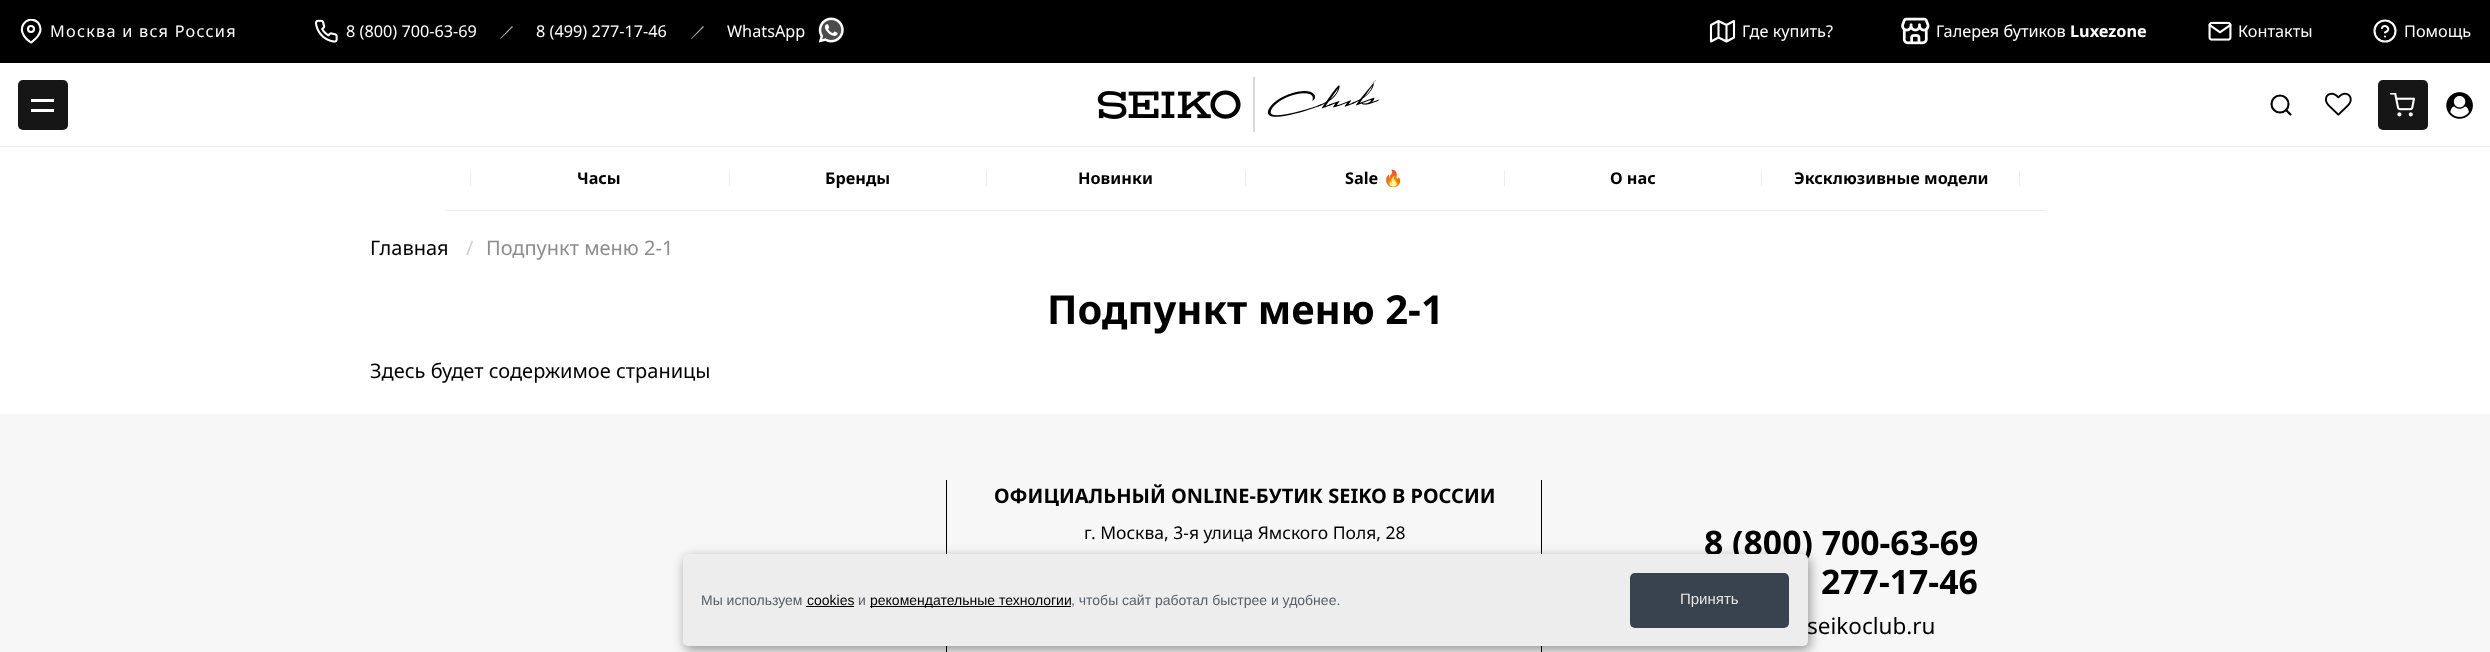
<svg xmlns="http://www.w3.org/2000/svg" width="2490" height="652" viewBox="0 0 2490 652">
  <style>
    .t1 { font: 16.25px Noto Sans; letter-spacing: 1.25px; fill: #fff; }
    .t2 { font: 16.25px Noto Sans; fill: #fff; }
    .t3 { font: bold 16.25px Noto Sans; fill: #fff; }
    .t4 { font: bold 16.25px Noto Sans; fill: #000; }
    .t5 { font: bold 16.25px Noto Color Emoji; fill: #000; }
    .t6 { font: 20px Noto Sans; fill: #000; }
    .t7 { font: 20px Noto Sans; fill: #d0d0d0; }
    .t8 { font: 20px Noto Sans; fill: #8e8d8d; }
    .t9 { font: bold 40px Noto Sans; fill: #000; }
    .t10 { font: bold 20px Noto Sans; fill: #000; }
    .t11 { font: 17.5px Noto Sans; fill: #000; }
    .t12 { font: bold 33.75px Noto Sans; fill: #000; }
    .t13 { font: 22.5px Noto Sans; fill: #000; }
    .t14 { font: 14px Liberation Sans; fill: #575f67; }
    .t15 { font: 14px Liberation Sans; fill: #000; }
    .t16 { font: 15px Liberation Sans; fill: #e5e5e5; }
  </style>
  <defs>
    <clipPath id="clip1"><rect x="19" y="19" width="25" height="25"/></clipPath>
  </defs>
  <rect width="100%" height="100%" fill="#fff"/>
  <rect x="0" y="0" width="2490" height="63" fill="#000"/>
  <g clip-path="url(#clip1)">
    <path d="M40.5 29C40.5 36.5 31 42.5 31 42.5C11.5 29.5 28 13 38 22.5C39.5 24.5 40.5 26.5 40.5 29Z" fill="none" stroke="#fff" stroke-width="2.1" stroke-linecap="round" stroke-linejoin="round"/>
  </g>
  <circle cx="31" cy="29" r="3" fill="none" stroke="#fff" stroke-width="2.1"/>
  <text x="50" y="37" class="t1">Москва и вся Россия</text>
  <image x="314" y="19" width="24" height="24" href="images/1.png"/>
  <text x="346" y="37" class="t2">8 (800) 700-63-69</text>
  <path d="M500 38.5L512 26L513 27L500.5 39Z" fill="#a8a8a8"/>
  <text x="536" y="37" class="t2">8 (499) 277-17-46</text>
  <path d="M691 38.5L703 26L704 27L691.5 39Z" fill="#a8a8a8"/>
  <text x="727" y="37" class="t2">WhatsApp</text>
  <image x="818" y="17" width="26" height="26" href="images/2.png"/>
  <path d="M1711 25V41.5L1718.5 37.5L1726.5 41.5L1734 37.5V21L1726.5 25L1718.5 21ZM1718.5 21V37.5M1726.5 25V41.5" fill="none" stroke="#fff" stroke-width="2.1" stroke-linecap="round" stroke-linejoin="round"/>
  <text x="1742" y="37" class="t2">Где купить?</text>
  <image x="1901" y="17" width="29" height="28" href="images/3.png"/>
  <text x="1936" y="37" class="t2">Галерея бутиков</text>
  <text x="2070" y="37" class="t3">Luxezone</text>
  <image x="2208" y="21" width="24" height="20" href="images/4.png"/>
  <text x="2238" y="37" class="t2">Контакты</text>
  <circle cx="2385" cy="31" r="10.5" fill="none" stroke="#fff" stroke-width="2.1"/>
  <path d="M2382 28C2384 22.5 2393 29.5 2385 32.5M2385 36.5H2385" fill="none" stroke="#fff" stroke-width="2.1" stroke-linecap="round" stroke-linejoin="round"/>
  <text x="2404" y="37" class="t2">Помощь</text>
  <rect x="0" y="146" width="2490" height="1" fill="#eee"/>
  <rect x="18" y="80" width="50" height="50" rx="5" fill="#161616"/>
  <rect x="31" y="99" width="23" height="3" fill="#fff"/>
  <rect x="31" y="109" width="23" height="3" fill="#fff"/>
  <image x="1097" y="77" width="282" height="55" href="images/5.png"/>
  <circle cx="2280" cy="104" r="8.5" fill="none" stroke="#000" stroke-width="2.1"/>
  <path d="M2290.5 114.5L2286 110" fill="none" stroke="#000" stroke-width="2.1" stroke-linecap="round" stroke-linejoin="round"/>
  <image x="2325" y="92" width="27" height="24" href="images/6.png"/>
  <rect x="2378" y="80" width="50" height="50" rx="5" fill="#161616"/>
  <image x="2390" y="93" width="25" height="24" href="images/7.png"/>
  <image x="2446" y="92" width="27" height="27" href="images/8.png"/>
  <rect x="445" y="210" width="1600" height="1" fill="#eee"/>
  <rect x="470" y="171" width="1" height="15" fill="#eee"/>
  <text x="577" y="184" class="t4">Часы</text>
  <rect x="729" y="171" width="1" height="15" fill="#eee"/>
  <text x="825" y="184" class="t4">Бренды</text>
  <rect x="986" y="171" width="1" height="15" fill="#eee"/>
  <text x="1078" y="184" class="t4">Новинки</text>
  <rect x="1245" y="171" width="1" height="15" fill="#eee"/>
  <text x="1345" y="184" class="t4">Sale</text>
  <text x="1383" y="184" class="t5">🔥</text>
  <rect x="1504" y="171" width="1" height="15" fill="#eee"/>
  <text x="1610" y="184" class="t4">О нас</text>
  <rect x="1761" y="171" width="1" height="15" fill="#eee"/>
  <text x="1794" y="184" class="t4">Эксклюзивные модели</text>
  <rect x="2019" y="171" width="1" height="15" fill="#eee"/>
  <text x="370" y="255" class="t6">Главная</text>
  <text x="466" y="255" class="t7">/</text>
  <text x="486" y="255" class="t8">Подпункт меню 2-1</text>
  <text x="1047" y="324" class="t9">Подпункт меню 2-1</text>
  <text x="370" y="378" class="t6">Здесь будет содержимое страницы</text>
  <rect x="0" y="414" width="2490" height="238" fill="#f7f7f7"/>
  <rect x="946" y="480" width="1" height="172" fill="#000"/>
  <text x="994" y="503" class="t10">ОФИЦИАЛЬНЫЙ ONLINE-БУТИК SEIKO В РОССИИ</text>
  <text x="1084" y="539" class="t11">г. Москва, 3-я улица Ямского Поля, 28</text>
  <rect x="1541" y="480" width="1" height="172" fill="#000"/>
  <text x="1704" y="555" class="t12">8 (800) 700-63-69</text>
  <text x="1821" y="594" class="t12">277-17-46</text>
  <text x="1807" y="634" class="t13">seikoclub.ru</text>
  <rect x="685" y="558" width="1125" height="92" rx="5" fill="#00000066" filter="blur(6px)"/>
  <rect x="683" y="554" width="1125" height="92" rx="5" fill="#ededed"/>
  <text x="701" y="605" class="t14">Мы используем</text>
  <text x="807" y="605" class="t15">cookies</text>
  <rect x="806" y="606" width="48" height="1" fill="#000"/>
  <text x="858" y="605" class="t14">и</text>
  <rect x="870" y="606" width="201" height="1" fill="#000"/>
  <text x="870" y="605" class="t15">рекомендательные технологии</text>
  <text x="1071" y="605" class="t14">, чтобы сайт работал быстрее и удобнее.</text>
  <rect x="1630" y="573" width="159" height="55" rx="5" fill="#39434e"/>
  <text x="1680" y="604" class="t16">Принять</text>
</svg>
